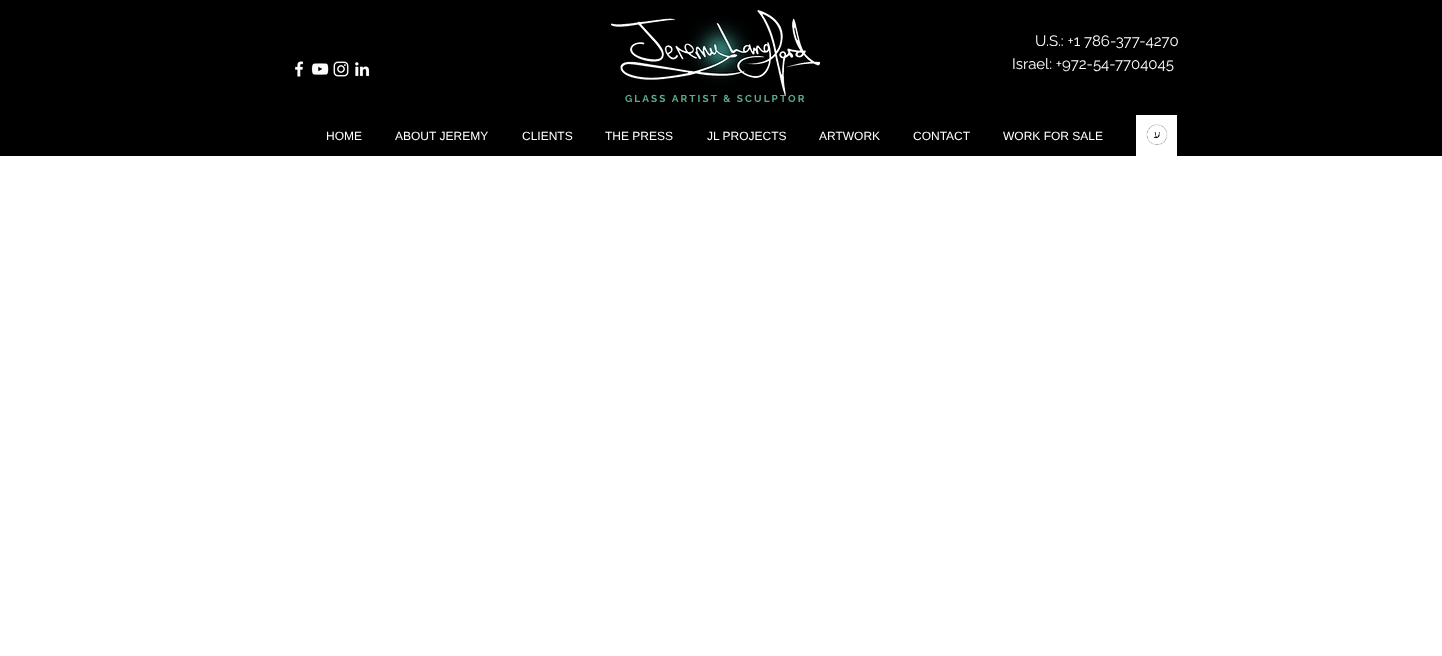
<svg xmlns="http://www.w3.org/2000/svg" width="1442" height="656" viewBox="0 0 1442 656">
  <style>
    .t1 { font: 15px Raleway; fill: #fff; }
    .t2 { font: bold 10px Raleway; letter-spacing: 2.1px; fill: #5aac89; }
    .t3 { font: 12px Liberation Sans; fill: #fff; }
  </style>
  <rect width="100%" height="100%" fill="#fff"/>
  <rect x="0" y="0" width="1442" height="156" fill="#000"/>
  <image x="611" y="10" width="209" height="86" href="images/1.png"/>
  <text x="1035" y="46" class="t1">U.S.: +1 786-377-4270</text>
  <image x="295" y="61" width="9" height="16" href="images/2.png"/>
  <image x="311" y="63" width="18" height="12" href="images/3.png"/>
  <image x="333" y="61" width="16" height="16" href="images/4.png"/>
  <image x="355" y="62" width="15" height="15" href="images/5.png"/>
  <text x="1012" y="69" class="t1">Israel: +972-54-7704045</text>
  <text x="625" y="102" class="t2">GLASS ARTIST &amp; SCULPTOR</text>
  <text x="326" y="140" class="t3">HOME</text>
  <text x="395" y="140" class="t3">ABOUT JEREMY</text>
  <text x="522" y="140" class="t3">CLIENTS</text>
  <text x="605" y="140" class="t3">THE PRESS</text>
  <text x="707" y="140" class="t3">JL PROJECTS</text>
  <text x="819" y="140" class="t3">ARTWORK</text>
  <text x="913" y="140" class="t3">CONTACT</text>
  <text x="1003" y="140" class="t3">WORK FOR SALE</text>
  <image x="1136" y="115" width="41" height="41" href="images/6.png"/>
</svg>
